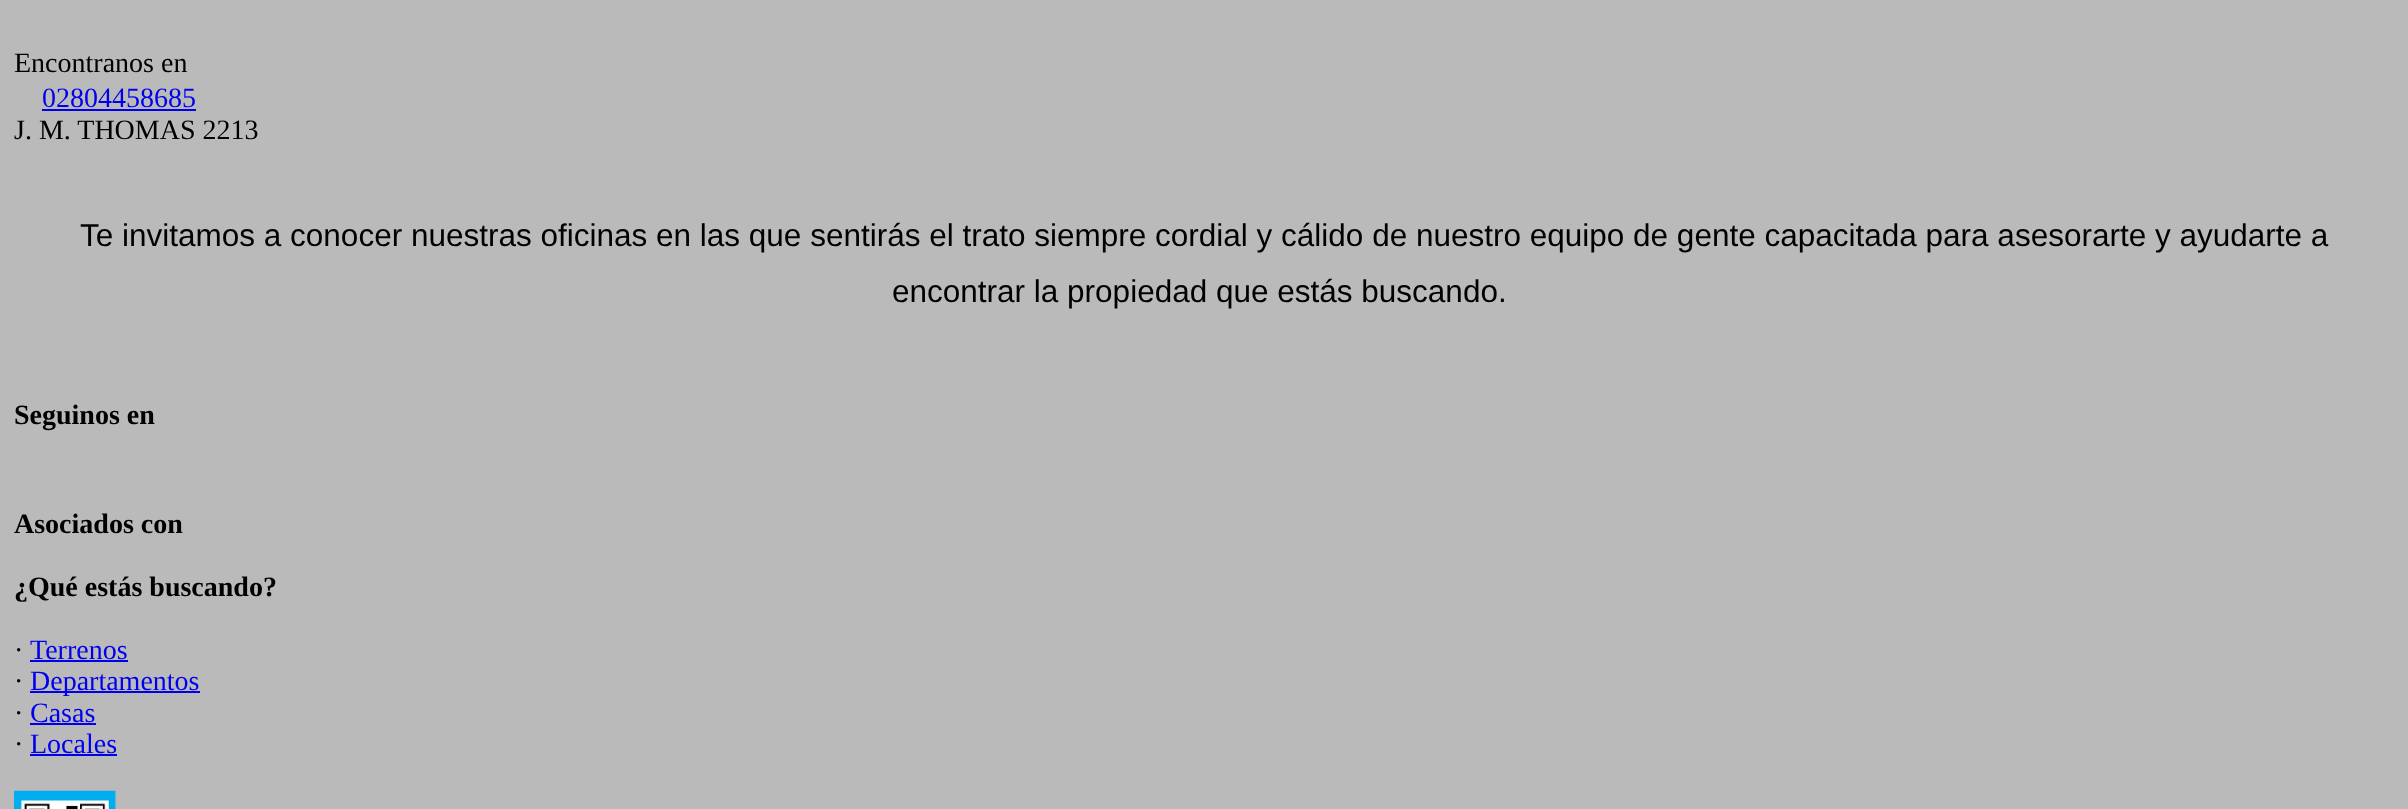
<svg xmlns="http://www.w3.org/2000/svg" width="2408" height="809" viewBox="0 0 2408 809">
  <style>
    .t1 { font: 28px Liberation Serif; fill: #000; }
    .t2 { font: 28px Liberation Serif; fill: #00e; }
    .t3 { font: 31.5px Liberation Sans; fill: #000; }
    .t4 { font: bold 28px Liberation Serif; fill: #000; }
  </style>
  <rect width="100%" height="100%" fill="#bababa"/>
  <text x="14" y="72" class="t1">Encontranos en</text>
  <text x="42" y="107" class="t2">02804458685</text>
  <rect x="42" y="109" width="154" height="2" fill="#00e"/>
  <text x="14" y="139" class="t1">J. M. THOMAS 2213</text>
  <text x="80" y="246" class="t3">Te invitamos a conocer nuestras oficinas en las que sentirás el trato siempre cordial y cálido de nuestro equipo de gente capacitada para asesorarte y ayudarte a</text>
  <text x="892" y="302" class="t3">encontrar la propiedad que estás buscando.</text>
  <text x="14" y="424" class="t4">Seguinos en</text>
  <text x="14" y="533" class="t4">Asociados con</text>
  <text x="14" y="596" class="t4">¿Qué estás buscando?</text>
  <text x="14" y="659" class="t1">·</text>
  <text x="30" y="659" class="t2">Terrenos</text>
  <rect x="30" y="660" width="98" height="2" fill="#00e"/>
  <text x="14" y="690" class="t1">·</text>
  <rect x="30" y="691" width="170" height="2" fill="#00e"/>
  <text x="30" y="690" class="t2">Departamentos</text>
  <text x="14" y="722" class="t1">·</text>
  <text x="30" y="722" class="t2">Casas</text>
  <rect x="30" y="723" width="66" height="2" fill="#00e"/>
  <text x="14" y="753" class="t1">·</text>
  <text x="30" y="753" class="t2">Locales</text>
  <rect x="30" y="754" width="87" height="2" fill="#00e"/>
  <image x="14" y="790" width="102" height="19" href="images/1.png"/>
</svg>
